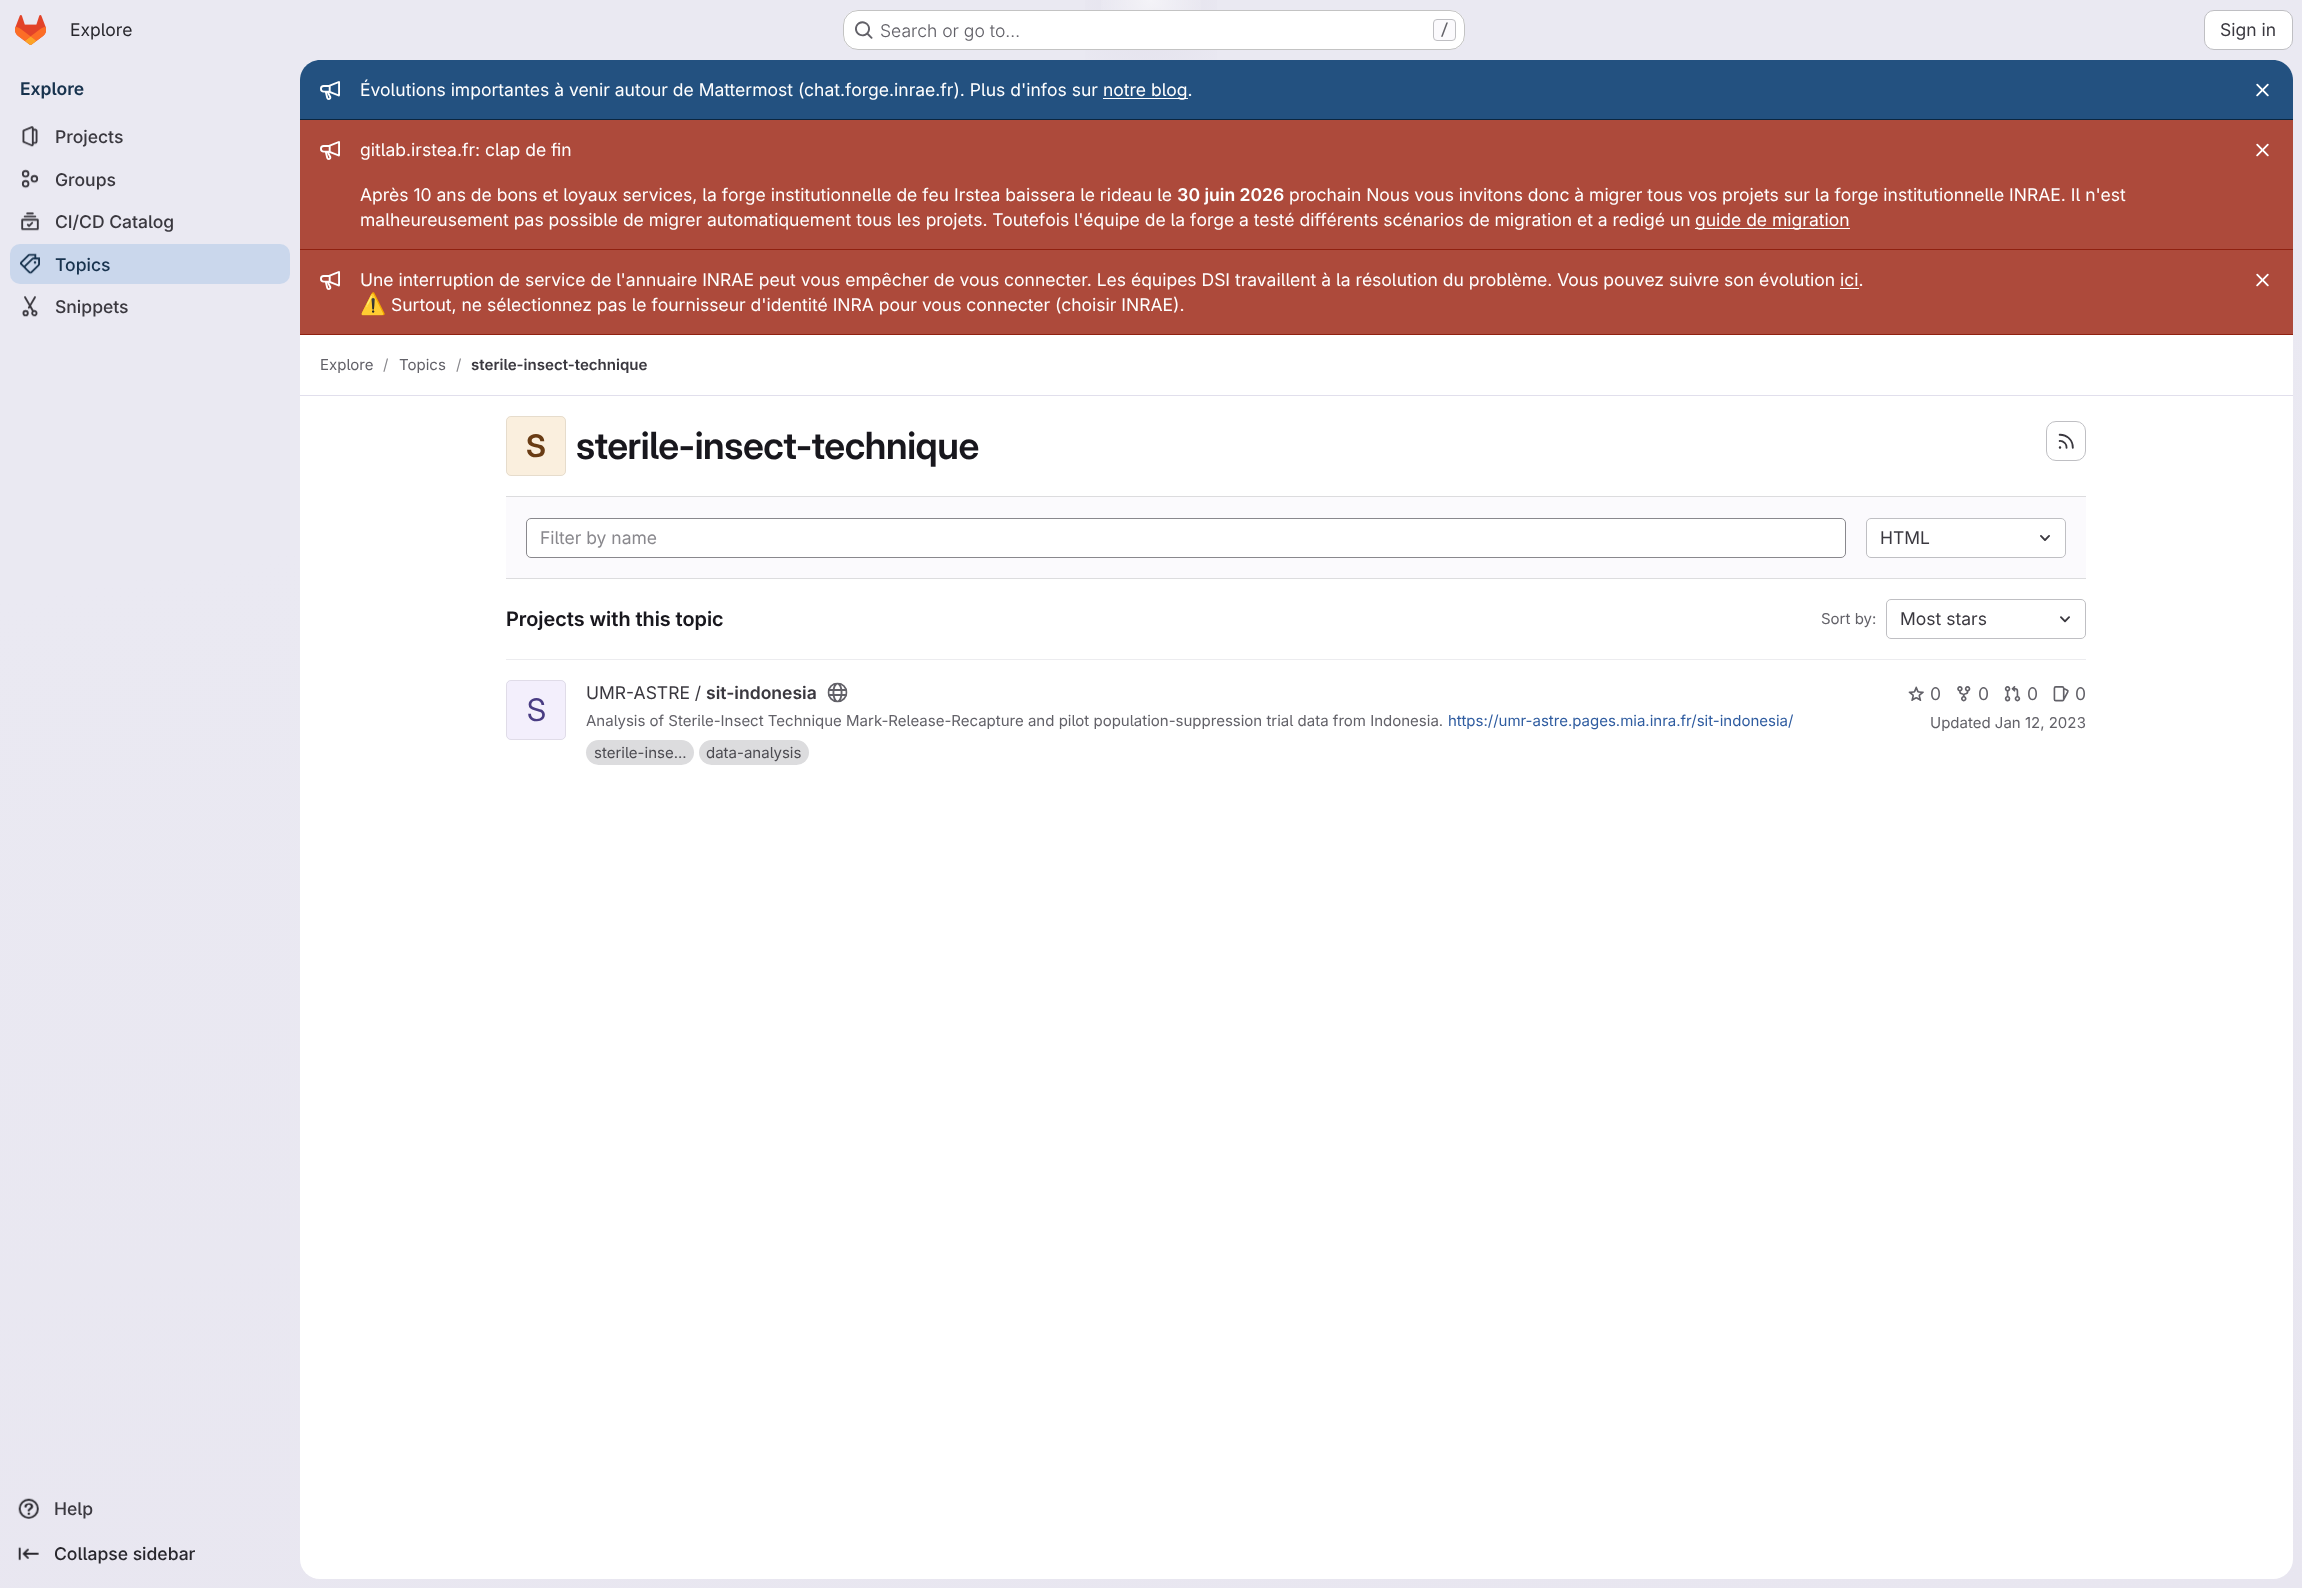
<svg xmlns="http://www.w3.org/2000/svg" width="2302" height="1588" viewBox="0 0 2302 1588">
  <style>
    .t1 { font: 17.5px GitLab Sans; fill: #28272d; }
    .t2 { font: 300 17.5px GitLab Sans; fill: #626168; }
    .t3 { font: 500 15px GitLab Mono; fill: #626168; }
    .t4 { font: 17.5px GitLab Sans; fill: #3a383f; }
    .t5 { font: 600 17.5px GitLab Sans; fill: #18334e; }
    .t6 { font: 500 17.5px GitLab Sans; fill: #3a383f; }
    .t7 { font: 500 17.5px GitLab Sans; fill: #18334e; }
    .t8 { font: 500 17.5px GitLab Sans; fill: #28272d; }
    .t9 { font: 17.5px GitLab Sans; fill: #fff; }
    .t10 { font: 600 17.5px GitLab Sans; fill: #fff; }
    .t11 { font: 21px Noto Color Emoji; fill: #fff; }
    .t12 { font: 15px GitLab Sans; fill: #626168; }
    .t13 { font: 15px GitLab Sans; fill: #89888d; }
    .t14 { font: 600 15px GitLab Sans; fill: #3a383f; }
    .t15 { font: 600 31px 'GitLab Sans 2'; letter-spacing: -0.4px; fill: #693c14; }
    .t16 { font: 600 37.5px 'GitLab Sans 2'; letter-spacing: -0.4px; fill: #18171d; }
    .t17 { font: 17.5px GitLab Sans; fill: #89888d; }
    .t18 { font: 600 20px 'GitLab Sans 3'; fill: #18171d; }
    .t19 { font: 31px 'GitLab Sans 2'; fill: #493c83; }
    .t20 { font: 600 17.5px GitLab Sans; fill: #3a383f; }
    .t21 { font: 15px GitLab Sans; fill: #2f5ca0; }
    .t22 { font: 15px GitLab Sans; fill: #4c4b51; }
    .t23 { font: 17.5px GitLab Sans; fill: #626168; }
  </style>
  <defs>
    <linearGradient id="g1" gradientUnits="userSpaceOnUse" x1="1322" y1="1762" x2="981" y2="-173"><stop offset="0" stop-color="#e8e6f0"/><stop offset="0.7" stop-color="#eae9f2"/></linearGradient>
    <radialGradient id="g2" gradientUnits="userSpaceOnUse" cx="0" cy="0" r="1" gradientTransform="matrix(1151 0 0 1589 1151 0)"><stop offset="0" stop-color="#e4e2ed"/><stop offset="0.08" stop-color="#e4e2ed" stop-opacity="0"/></radialGradient>
    <radialGradient id="g3" gradientUnits="userSpaceOnUse" cx="0" cy="0" r="1" gradientTransform="matrix(1151 0 0 1589 1151 0)"><stop offset="0" stop-color="#e4e2ec"/><stop offset="0.05" stop-color="#e4e2ec" stop-opacity="0"/></radialGradient>
    <radialGradient id="g4" gradientUnits="userSpaceOnUse" cx="1151" cy="0" r="1962"><stop offset="0" stop-color="#fff" stop-opacity="0.6"/><stop offset="0.03" stop-color="#fff" stop-opacity="0"/></radialGradient>
  </defs>
  <rect width="100%" height="100%" fill="#fff"/>
  <rect x="0" y="0" width="2302" height="1588" fill="url(#g1)"/>
  <rect x="1085" y="0" width="132" height="60" fill="url(#g2)"/>
  <rect x="1149" y="8" width="12" height="8" fill="url(#g3)"/>
  <rect x="1101" y="0" width="100" height="10" fill="url(#g4)"/>
  <image x="15" y="15" width="31" height="30" href="images/1.png"/>
  <text x="70" y="36" class="t1">Explore</text>
  <rect x="843" y="10" width="622" height="40" rx="15" fill="#fff"/>
  <rect x="843.5" y="10.5" width="621" height="39" rx="14.5" fill="none" stroke="#0505063d"/>
  <image x="855" y="21" width="18" height="18" href="images/2.png"/>
  <text x="880" y="37" class="t2">Search or go to…</text>
  <rect x="1433.5" y="19.5" width="22" height="21" rx="3.5" fill="#fbfafd" stroke="#bfbfc3"/>
  <text x="1440" y="35" class="t3">/</text>
  <rect x="2204.5" y="10.5" width="88" height="39" rx="9.5" fill="#fff" stroke="#bfbfc3"/>
  <text x="2220" y="36" class="t4">Sign in</text>
  <text x="20" y="95" class="t5">Explore</text>
  <image x="22" y="126" width="16" height="21" href="images/3.png"/>
  <text x="55" y="143" class="t6">Projects</text>
  <image x="21" y="169" width="18" height="20" href="images/4.png"/>
  <text x="55" y="186" class="t6">Groups</text>
  <image x="21" y="212" width="18" height="19" href="images/5.png"/>
  <text x="55" y="228" class="t6">CI/CD Catalog</text>
  <rect x="10" y="244" width="280" height="40" rx="10" fill="#cad7ec"/>
  <image x="20" y="253" width="20" height="22" href="images/6.png"/>
  <text x="55" y="271" class="t7">Topics</text>
  <image x="22" y="296" width="16" height="21" href="images/7.png"/>
  <text x="55" y="313" class="t6">Snippets</text>
  <image x="18" y="1498" width="21" height="21" href="images/8.png"/>
  <text x="54" y="1515" class="t6">Help</text>
  <image x="18" y="1546" width="21" height="15" href="images/9.png"/>
  <text x="54" y="1560" class="t8">Collapse sidebar</text>
  <rect x="300" y="60" width="1993" height="1519" rx="20" fill="#fff"/>
  <path d="M320 60H2273C2284 60 2293 69 2293 80V120H300V80C300 69 309 60 320 60Z" fill="#235180"/>
  <rect x="300" y="119" width="1993" height="1" fill="#0b2640"/>
  <image x="320" y="81" width="20" height="19" href="images/10.png"/>
  <text x="360" y="96" class="t9">Évolutions importantes à venir autour de Mattermost (chat.forge.inrae.fr). Plus d'infos sur</text>
  <rect x="1103" y="98" width="85" height="1" fill="#fff"/>
  <text x="1103" y="96" class="t9">notre blog.</text>
  <image x="2256" y="83" width="13" height="14" href="images/11.png"/>
  <rect x="300" y="120" width="1993" height="129" fill="#ad4a3b"/>
  <rect x="300" y="249" width="1993" height="1" fill="#8f2110"/>
  <image x="320" y="141" width="20" height="19" href="images/12.png"/>
  <text x="360" y="156" class="t9">gitlab.irstea.fr: clap de fin</text>
  <text x="360" y="201" class="t9">Après 10 ans de bons et loyaux services, la forge institutionnelle de feu Irstea baissera le rideau le</text>
  <text x="1177" y="201" class="t10">30 juin 2026</text>
  <text x="1289" y="201" class="t9">prochain Nous vous invitons donc à migrer tous vos projets sur la forge institutionnelle INRAE. Il n'est</text>
  <text x="360" y="226" class="t9">malheureusement pas possible de migrer automatiquement tous les projets. Toutefois l'équipe de la forge a testé différents scénarios de migration et a redigé un</text>
  <rect x="1695" y="228" width="155" height="1" fill="#fff"/>
  <text x="1695" y="226" class="t9">guide de migration</text>
  <image x="2256" y="143" width="13" height="14" href="images/13.png"/>
  <rect x="300" y="250" width="1993" height="84" fill="#ad4a3b"/>
  <rect x="300" y="334" width="1993" height="1" fill="#8f2110"/>
  <image x="320" y="271" width="20" height="19" href="images/14.png"/>
  <text x="360" y="286" class="t9">Une interruption de service de l'annuaire INRAE peut vous empêcher de vous connecter. Les équipes DSI travaillent à la résolution du problème. Vous pouvez suivre son évolution ici.</text>
  <rect x="1840" y="288" width="19" height="1" fill="#fff"/>
  <text x="360" y="311" class="t11">⚠️</text>
  <text x="391" y="311" class="t9">Surtout, ne sélectionnez pas le fournisseur d'identité INRA pour vous connecter (choisir INRAE).</text>
  <image x="2256" y="273" width="13" height="14" href="images/13.png"/>
  <rect x="300" y="395" width="1993" height="1" fill="#e1dfec"/>
  <text x="320" y="370" class="t12">Explore</text>
  <text x="383" y="370" class="t13">/</text>
  <text x="399" y="370" class="t12">Topics</text>
  <text x="456" y="370" class="t13">/</text>
  <text x="471" y="370" class="t14">sterile-insect-technique</text>
  <rect x="506" y="416" width="60" height="60" rx="5" fill="#faefde"/>
  <rect x="506.5" y="416.5" width="59" height="59" rx="4.5" fill="none" stroke="#05050614"/>
  <text x="526" y="457" class="t15">S</text>
  <text x="576" y="459" class="t16">sterile-insect-technique</text>
  <rect x="2046.5" y="421.5" width="39" height="39" rx="9.5" fill="none" stroke="#bfbfc3"/>
  <image x="2058" y="433" width="16" height="16" href="images/15.png"/>
  <rect x="506" y="497" width="1580" height="81" fill="#fbfafd"/>
  <rect x="506" y="496" width="1580" height="1" fill="#dcdcde"/>
  <rect x="506" y="578" width="1580" height="1" fill="#dcdcde"/>
  <rect x="526.5" y="518.5" width="1319" height="39" rx="4.5" fill="#fff" stroke="#89888d"/>
  <text x="540" y="544" class="t17">Filter by name</text>
  <rect x="1866.5" y="518.5" width="199" height="39" rx="4.5" fill="#fff" stroke="#bfbfc3"/>
  <text x="1880" y="544" class="t4">HTML</text>
  <image x="2040" y="535" width="10" height="6" href="images/16.png"/>
  <rect x="506" y="659" width="1580" height="1" fill="#ececef"/>
  <text x="506" y="626" class="t18">Projects with this topic</text>
  <text x="1821" y="624" class="t12">Sort by:</text>
  <rect x="1886.5" y="599.5" width="199" height="39" rx="4.5" fill="none" stroke="#bfbfc3"/>
  <text x="1900" y="625" class="t4">Most stars</text>
  <image x="2060" y="616" width="10" height="7" href="images/17.png"/>
  <rect x="506" y="680" width="60" height="60" rx="5" fill="#f3effc"/>
  <rect x="506.5" y="680.5" width="59" height="59" rx="4.5" fill="none" stroke="#05050614"/>
  <text x="527" y="721" class="t19">S</text>
  <text x="586" y="699" class="t4">UMR-ASTRE /</text>
  <text x="706" y="699" class="t20">sit-indonesia</text>
  <image x="827" y="682" width="21" height="21" href="images/18.png"/>
  <text x="586" y="726" class="t12">Analysis of Sterile-Insect Technique Mark-Release-Recapture and pilot population-suppression trial data from Indonesia.</text>
  <text x="1448" y="726" class="t21">https://umr-astre.pages.mia.inra.fr/sit-indonesia/</text>
  <rect x="586" y="740" width="108" height="25" rx="12.5" fill="#dcdcde"/>
  <text x="594" y="758" class="t22">sterile-inse...</text>
  <rect x="699" y="740" width="110" height="25" rx="12.5" fill="#dcdcde"/>
  <text x="706" y="758" class="t22">data-analysis</text>
  <image x="1908" y="686" width="16" height="15" href="images/19.png"/>
  <text x="1930" y="700" class="t23">0</text>
  <image x="1957" y="686" width="14" height="16" href="images/20.png"/>
  <text x="1978" y="700" class="t23">0</text>
  <image x="2004" y="686" width="17" height="16" href="images/21.png"/>
  <text x="2027" y="700" class="t23">0</text>
  <image x="2053" y="686" width="16" height="16" href="images/22.png"/>
  <text x="2075" y="700" class="t23">0</text>
  <text x="1930" y="728" class="t12">Updated Jan 12, 2023</text>
</svg>
